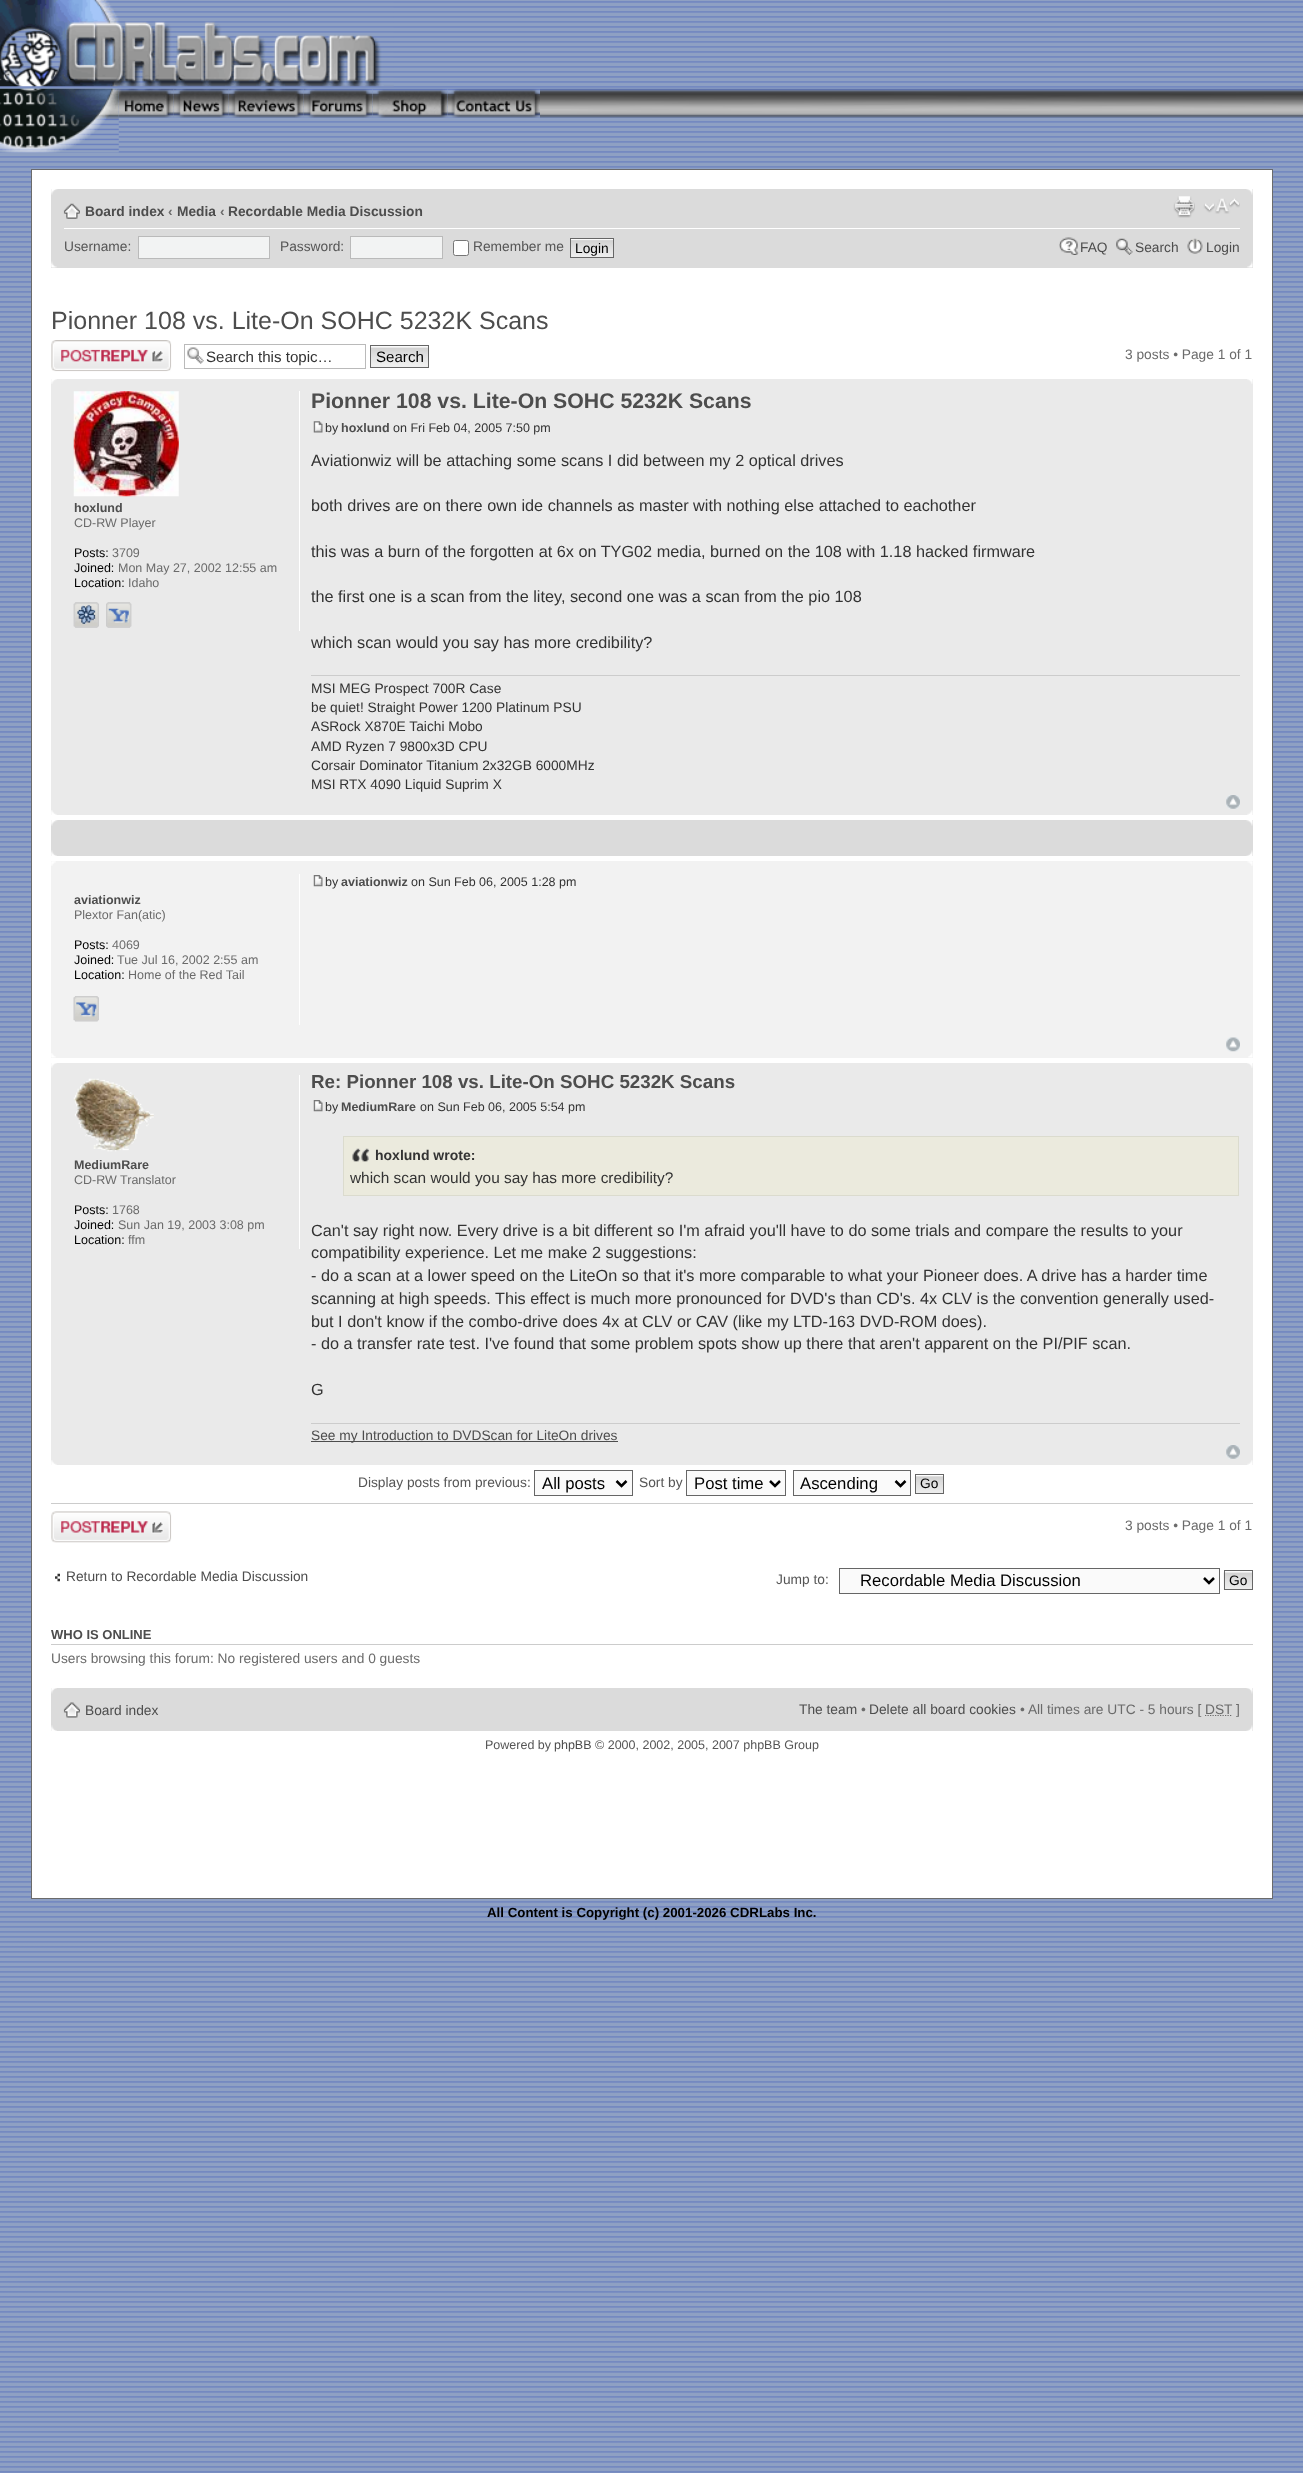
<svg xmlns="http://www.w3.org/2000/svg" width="1303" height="2473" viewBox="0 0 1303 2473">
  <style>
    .t1 { font: bold 13.75px Liberation Sans; fill: #4d4d4d; }
    .t2 { font: bold 13.75px Liberation Sans; fill: #6b6b6b; }
    .t3 { font: 13.75px Liberation Sans; fill: #555; }
    .t4 { font: 13.75px Liberation Sans; fill: #000; }
    .t5 { font: 13.75px Liberation Sans; fill: #4d4d4d; }
    .t6 { font: 25px Liberation Sans; fill: #4d4d4d; }
    .t7 { font: 15.1px Liberation Sans; fill: #333; }
    .t8 { font: 15.1px Liberation Sans; fill: #000; }
    .t9 { font: 13.75px Liberation Sans; fill: #6b6b6b; }
    .t10 { font: bold 12.5px Liberation Sans; fill: #4d4d4d; }
    .t11 { font: 12.5px Liberation Sans; fill: #6b6b6b; }
    .t12 { font: 12.5px Liberation Sans; fill: #000; }
    .t13 { font: bold 21.25px Liberation Sans; fill: #4d4d4d; }
    .t14 { font: 12.5px Liberation Sans; fill: #333; }
    .t15 { font: 16.25px Liberation Sans; fill: #333; }
    .t16 { font: 13.75px Liberation Sans; fill: #333; }
    .t17 { font: bold 18.75px Liberation Sans; fill: #4d4d4d; }
    .t18 { font: bold 14px Liberation Sans; fill: #333; }
    .t19 { font: 15.4px Liberation Sans; fill: #333; }
    .t20 { font: 16.7px Liberation Sans; fill: #000; }
    .t21 { font: bold 13px Liberation Sans; fill: #4d4d4d; }
    .t22 { font: 12.5px Liberation Sans; fill: #555; }
    .t23 { font: 12.5px Liberation Sans; fill: #4d4d4d; }
    .t24 { font: bold 13.3px Liberation Sans; fill: #000; }
  </style>
  <rect width="100%" height="100%" fill="#fff"/>
  <image x="0" y="0" width="1303" height="2473" href="images/1.png"/>
  <image x="0" y="0" width="394" height="87" href="images/2.png"/>
  <image x="0" y="88" width="119" height="65" href="images/3.png"/>
  <image x="118" y="88" width="56" height="30" href="images/4.png"/>
  <image x="173" y="88" width="56" height="30" href="images/5.png"/>
  <image x="228" y="88" width="76" height="30" href="images/6.png"/>
  <image x="303" y="88" width="70" height="30" href="images/7.png"/>
  <image x="372" y="88" width="76" height="30" href="images/8.png"/>
  <image x="447" y="88" width="93" height="30" href="images/9.png"/>
  <image x="540" y="88" width="763" height="30" href="images/10.png"/>
  <rect x="31.5" y="169.5" width="1241" height="1729" fill="#fff" stroke="#6b6b6b"/>
  <rect x="51" y="189" width="1202" height="79" fill="#dbdbdb"/>
  <image x="51" y="189" width="7" height="6" href="images/11.png"/>
  <image x="1246" y="189" width="7" height="6" href="images/12.png"/>
  <rect x="64" y="228" width="1176" height="1" fill="#fff"/>
  <image x="63" y="203" width="17" height="16" href="images/13.png"/>
  <text x="85" y="216" class="t1">Board index</text>
  <text x="168" y="216" class="t2">‹</text>
  <text x="177" y="216" class="t1">Media</text>
  <text x="220" y="216" class="t2">‹</text>
  <text x="228" y="216" class="t1">Recordable Media Discussion</text>
  <image x="1173" y="196" width="22" height="22" href="images/14.png"/>
  <image x="1203" y="198" width="37" height="16" href="images/15.png"/>
  <text x="64" y="251" class="t3">Username:</text>
  <rect x="138.5" y="236.5" width="131" height="22" fill="#f2f3f3" stroke="#bababa"/>
  <text x="280" y="251" class="t3">Password:</text>
  <rect x="350.5" y="236.5" width="92" height="22" fill="#f2f3f3" stroke="#bababa"/>
  <rect x="453.5" y="240.5" width="15" height="15" rx="2" fill="#fff" stroke="#767676"/>
  <text x="473" y="251" class="t3">Remember me</text>
  <rect x="571" y="239" width="42" height="1" fill="#fafafa"/>
  <image x="571" y="240" width="42" height="17" href="images/16.png"/>
  <rect x="570.5" y="238.5" width="43" height="19" fill="none" stroke="#666"/>
  <text x="575" y="253" class="t4">Login</text>
  <image x="1059" y="237" width="20" height="18" href="images/17.png"/>
  <text x="1080" y="252" class="t5">FAQ</text>
  <image x="1116" y="238" width="17" height="17" href="images/18.png"/>
  <text x="1135" y="252" class="t5">Search</text>
  <image x="1187" y="238" width="16" height="16" href="images/19.png"/>
  <text x="1206" y="252" class="t5">Login</text>
  <image x="51" y="261" width="6" height="7" href="images/20.png"/>
  <image x="1247" y="261" width="6" height="7" href="images/21.png"/>
  <text x="51" y="329" class="t6">Pionner 108 vs. Lite-On SOHC 5232K Scans</text>
  <image x="51" y="340" width="121" height="32" href="images/22.png"/>
  <image x="187" y="347" width="17" height="17" href="images/23.png"/>
  <rect x="184.5" y="344.5" width="181" height="24" fill="none" stroke="#bababa"/>
  <text x="206" y="362" class="t7">Search this topic…</text>
  <rect x="371" y="346" width="57" height="1" fill="#fafafa"/>
  <image x="371" y="347" width="57" height="20" href="images/24.png"/>
  <rect x="370.5" y="345.5" width="58" height="22" fill="none" stroke="#666"/>
  <text x="376" y="362" class="t8">Search</text>
  <text x="1125" y="359" class="t9">3 posts • Page 1 of 1</text>
  <rect x="51" y="379" width="1202" height="436" fill="#eaeaea"/>
  <image x="51" y="379" width="6" height="5" href="images/25.png"/>
  <image x="1247" y="379" width="6" height="5" href="images/26.png"/>
  <rect x="299" y="391" width="1" height="240" fill="#fff"/>
  <image x="73" y="391" width="106" height="106" href="images/27.png"/>
  <text x="74" y="512" class="t10">hoxlund</text>
  <text x="74" y="527" class="t11">CD-RW Player</text>
  <text x="74" y="557" class="t12">Posts:</text>
  <text x="112" y="557" class="t11">3709</text>
  <text x="74" y="572" class="t12">Joined:</text>
  <text x="118" y="572" class="t11">Mon May 27, 2002 12:55 am</text>
  <text x="74" y="587" class="t12">Location:</text>
  <text x="128" y="587" class="t11">Idaho</text>
  <image x="73" y="602" width="26" height="26" href="images/28.png"/>
  <image x="74" y="603" width="25" height="24" href="images/29.png"/>
  <image x="106" y="602" width="26" height="26" href="images/30.png"/>
  <image x="106" y="603" width="25" height="24" href="images/31.png"/>
  <text x="311" y="408" class="t13">Pionner 108 vs. Lite-On SOHC 5232K Scans</text>
  <image x="313" y="421" width="10" height="12" href="images/32.png"/>
  <text x="325" y="432" class="t14">by</text>
  <text x="341" y="432" class="t10">hoxlund</text>
  <text x="393" y="432" class="t14">on Fri Feb 04, 2005 7:50 pm</text>
  <text x="311" y="466" class="t15">Aviationwiz will be attaching some scans I did between my 2 optical drives</text>
  <text x="311" y="511" class="t15">both drives are on there own ide channels as master with nothing else attached to eachother</text>
  <text x="311" y="557" class="t15">this was a burn of the forgotten at 6x on TYG02 media, burned on the 108 with 1.18 hacked firmware</text>
  <text x="311" y="602" class="t15">the first one is a scan from the litey, second one was a scan from the pio 108</text>
  <text x="311" y="648" class="t15">which scan would you say has more credibility?</text>
  <rect x="311" y="675" width="929" height="1" fill="#ccc"/>
  <text x="311" y="693" class="t16">MSI MEG Prospect 700R Case</text>
  <text x="311" y="712" class="t16">be quiet! Straight Power 1200 Platinum PSU</text>
  <text x="311" y="731" class="t16">ASRock X870E Taichi Mobo</text>
  <text x="311" y="751" class="t16">AMD Ryzen 7 9800x3D CPU</text>
  <text x="311" y="770" class="t16">Corsair Dominator Titanium 2x32GB 6000MHz</text>
  <text x="311" y="789" class="t16">MSI RTX 4090 Liquid Suprim X</text>
  <image x="1226" y="795" width="14" height="14" href="images/33.png"/>
  <image x="51" y="810" width="6" height="5" href="images/34.png"/>
  <image x="1247" y="810" width="6" height="5" href="images/35.png"/>
  <rect x="51" y="820" width="1202" height="36" fill="#dbdbdb"/>
  <image x="51" y="820" width="7" height="6" href="images/36.png"/>
  <image x="1246" y="820" width="7" height="6" href="images/37.png"/>
  <image x="51" y="850" width="6" height="6" href="images/38.png"/>
  <image x="1246" y="850" width="7" height="6" href="images/39.png"/>
  <rect x="51" y="861" width="1202" height="197" fill="#f2f2f2"/>
  <image x="51" y="861" width="5" height="5" href="images/40.png"/>
  <image x="1247" y="861" width="6" height="5" href="images/41.png"/>
  <image x="313" y="875" width="10" height="12" href="images/42.png"/>
  <text x="325" y="886" class="t14">by</text>
  <text x="341" y="886" class="t10">aviationwiz</text>
  <text x="411" y="886" class="t14">on Sun Feb 06, 2005 1:28 pm</text>
  <rect x="299" y="874" width="1" height="151" fill="#fff"/>
  <text x="74" y="904" class="t10">aviationwiz</text>
  <text x="74" y="919" class="t11">Plextor Fan(atic)</text>
  <text x="74" y="949" class="t12">Posts:</text>
  <text x="112" y="949" class="t11">4069</text>
  <text x="74" y="964" class="t12">Joined:</text>
  <text x="117" y="964" class="t11">Tue Jul 16, 2002 2:55 am</text>
  <text x="74" y="979" class="t12">Location:</text>
  <text x="128" y="979" class="t11">Home of the Red Tail</text>
  <image x="73" y="996" width="26" height="26" href="images/43.png"/>
  <image x="73" y="996" width="26" height="26" href="images/44.png"/>
  <image x="1226" y="1037" width="14" height="15" href="images/45.png"/>
  <image x="51" y="1053" width="5" height="5" href="images/46.png"/>
  <image x="1248" y="1053" width="5" height="5" href="images/47.png"/>
  <rect x="51" y="1063" width="1202" height="402" fill="#eaeaea"/>
  <image x="51" y="1063" width="6" height="5" href="images/48.png"/>
  <image x="1247" y="1063" width="6" height="5" href="images/49.png"/>
  <rect x="299" y="1075" width="1" height="174" fill="#fff"/>
  <image x="73" y="1078" width="81" height="74" href="images/50.png"/>
  <text x="74" y="1169" class="t10">MediumRare</text>
  <text x="74" y="1184" class="t11">CD-RW Translator</text>
  <text x="74" y="1214" class="t12">Posts:</text>
  <text x="112" y="1214" class="t11">1768</text>
  <text x="74" y="1229" class="t12">Joined:</text>
  <text x="118" y="1229" class="t11">Sun Jan 19, 2003 3:08 pm</text>
  <text x="74" y="1244" class="t12">Location:</text>
  <text x="128" y="1244" class="t11">ffm</text>
  <text x="311" y="1088" class="t17">Re: Pionner 108 vs. Lite-On SOHC 5232K Scans</text>
  <image x="313" y="1100" width="10" height="12" href="images/51.png"/>
  <text x="325" y="1111" class="t14">by</text>
  <text x="341" y="1111" class="t10">MediumRare</text>
  <text x="420" y="1111" class="t14">on Sun Feb 06, 2005 5:54 pm</text>
  <rect x="344" y="1137" width="894" height="58" fill="#ebeadd"/>
  <image x="352" y="1148" width="18" height="14" href="images/52.png"/>
  <rect x="343.5" y="1136.5" width="895" height="59" fill="none" stroke="#dbdbce"/>
  <text x="375" y="1160" class="t18">hoxlund wrote:</text>
  <text x="350" y="1183" class="t19">which scan would you say has more credibility?</text>
  <text x="311" y="1236" class="t15">Can't say right now. Every drive is a bit different so I'm afraid you'll have to do some trials and compare the results to your</text>
  <text x="311" y="1258" class="t15">compatibility experience. Let me make 2 suggestions:</text>
  <text x="311" y="1281" class="t15">- do a scan at a lower speed on the LiteOn so that it's more comparable to what your Pioneer does. A drive has a harder time</text>
  <text x="311" y="1304" class="t15">scanning at high speeds. This effect is much more pronounced for DVD's than CD's. 4x CLV is the convention generally used-</text>
  <text x="311" y="1327" class="t15">but I don't know if the combo-drive does 4x at CLV or CAV (like my LTD-163 DVD-ROM does).</text>
  <text x="311" y="1349" class="t15">- do a transfer rate test. I've found that some problem spots show up there that aren't apparent on the PI/PIF scan.</text>
  <text x="311" y="1395" class="t15">G</text>
  <rect x="311" y="1423" width="929" height="1" fill="#ccc"/>
  <rect x="311" y="1441" width="307" height="1" fill="#4d4d4d"/>
  <text x="311" y="1440" class="t5">See my Introduction to DVDScan for LiteOn drives</text>
  <image x="1226" y="1445" width="14" height="14" href="images/33.png"/>
  <image x="51" y="1460" width="6" height="5" href="images/34.png"/>
  <image x="1247" y="1460" width="6" height="5" href="images/35.png"/>
  <text x="358" y="1487" class="t3">Display posts from previous:</text>
  <rect x="534.5" y="1470.5" width="98" height="25" fill="#fafafa" stroke="#666"/>
  <path d="M616.5 1481L621.5 1486L626.5 1481" fill="none" stroke="#000" stroke-width="2.5"/>
  <text x="542" y="1489" class="t20">All posts</text>
  <text x="639" y="1487" class="t3">Sort by</text>
  <rect x="686.5" y="1470.5" width="99" height="25" fill="#fafafa" stroke="#666"/>
  <path d="M770 1481L775 1486L780 1481" fill="none" stroke="#000" stroke-width="2.5"/>
  <text x="694" y="1489" class="t20">Post time</text>
  <rect x="793.5" y="1470.5" width="117" height="25" fill="#fafafa" stroke="#666"/>
  <path d="M895.5 1481L900.5 1486L905.5 1481" fill="none" stroke="#000" stroke-width="2.5"/>
  <text x="800" y="1489" class="t20">Ascending</text>
  <image x="916" y="1475" width="27" height="18" href="images/53.png"/>
  <rect x="915.5" y="1474.5" width="28" height="19" fill="none" stroke="#666"/>
  <text x="920" y="1488" class="t4">Go</text>
  <rect x="51" y="1503" width="1202" height="1" fill="#ccc"/>
  <image x="51" y="1511" width="121" height="32" href="images/54.png"/>
  <text x="1125" y="1530" class="t9">3 posts • Page 1 of 1</text>
  <image x="55" y="1573" width="5" height="9" href="images/55.png"/>
  <text x="66" y="1581" class="t5">Return to Recordable Media Discussion</text>
  <text x="776" y="1584" class="t3">Jump to:</text>
  <rect x="839.5" y="1568.5" width="380" height="25" fill="#fafafa" stroke="#666"/>
  <path d="M1204 1578L1209 1583L1214 1578" fill="none" stroke="#000" stroke-width="2.5"/>
  <text x="860" y="1586" class="t20">Recordable Media Discussion</text>
  <rect x="1225" y="1571" width="27" height="1" fill="#fafafa"/>
  <image x="1223" y="1572" width="29" height="18" href="images/56.png"/>
  <rect x="1224.5" y="1570.5" width="28" height="19" fill="none" stroke="#666"/>
  <text x="1229" y="1585" class="t4">Go</text>
  <rect x="51" y="1644" width="1202" height="1" fill="#ccc"/>
  <text x="51" y="1639" class="t21">WHO IS ONLINE</text>
  <text x="51" y="1663" class="t9">Users browsing this forum: No registered users and 0 guests</text>
  <rect x="51" y="1688" width="1202" height="43" fill="#dbdbdb"/>
  <image x="51" y="1688" width="6" height="6" href="images/57.png"/>
  <image x="1246" y="1688" width="7" height="6" href="images/58.png"/>
  <image x="63" y="1702" width="17" height="16" href="images/59.png"/>
  <text x="85" y="1715" class="t5">Board index</text>
  <text x="799" y="1714" class="t5">The team</text>
  <text x="861" y="1714" class="t9">•</text>
  <text x="869" y="1714" class="t5">Delete all board cookies</text>
  <text x="1020" y="1714" class="t9">• All times are UTC - 5 hours [</text>
  <path d="M1205 1715.5H1232" fill="none" stroke="#6b6b6b" stroke-width="1.2" stroke-dasharray="1.25 1.25"/>
  <text x="1205" y="1714" class="t9">DST ]</text>
  <image x="51" y="1725" width="6" height="6" href="images/38.png"/>
  <image x="1246" y="1725" width="7" height="6" href="images/39.png"/>
  <text x="485" y="1749" class="t22">Powered by</text>
  <text x="554" y="1749" class="t23">phpBB</text>
  <text x="595" y="1749" class="t22">© 2000, 2002, 2005, 2007 phpBB Group</text>
  <text x="487" y="1917" class="t24">All Content is Copyright (c) 2001-2026 CDRLabs Inc.</text>
</svg>
